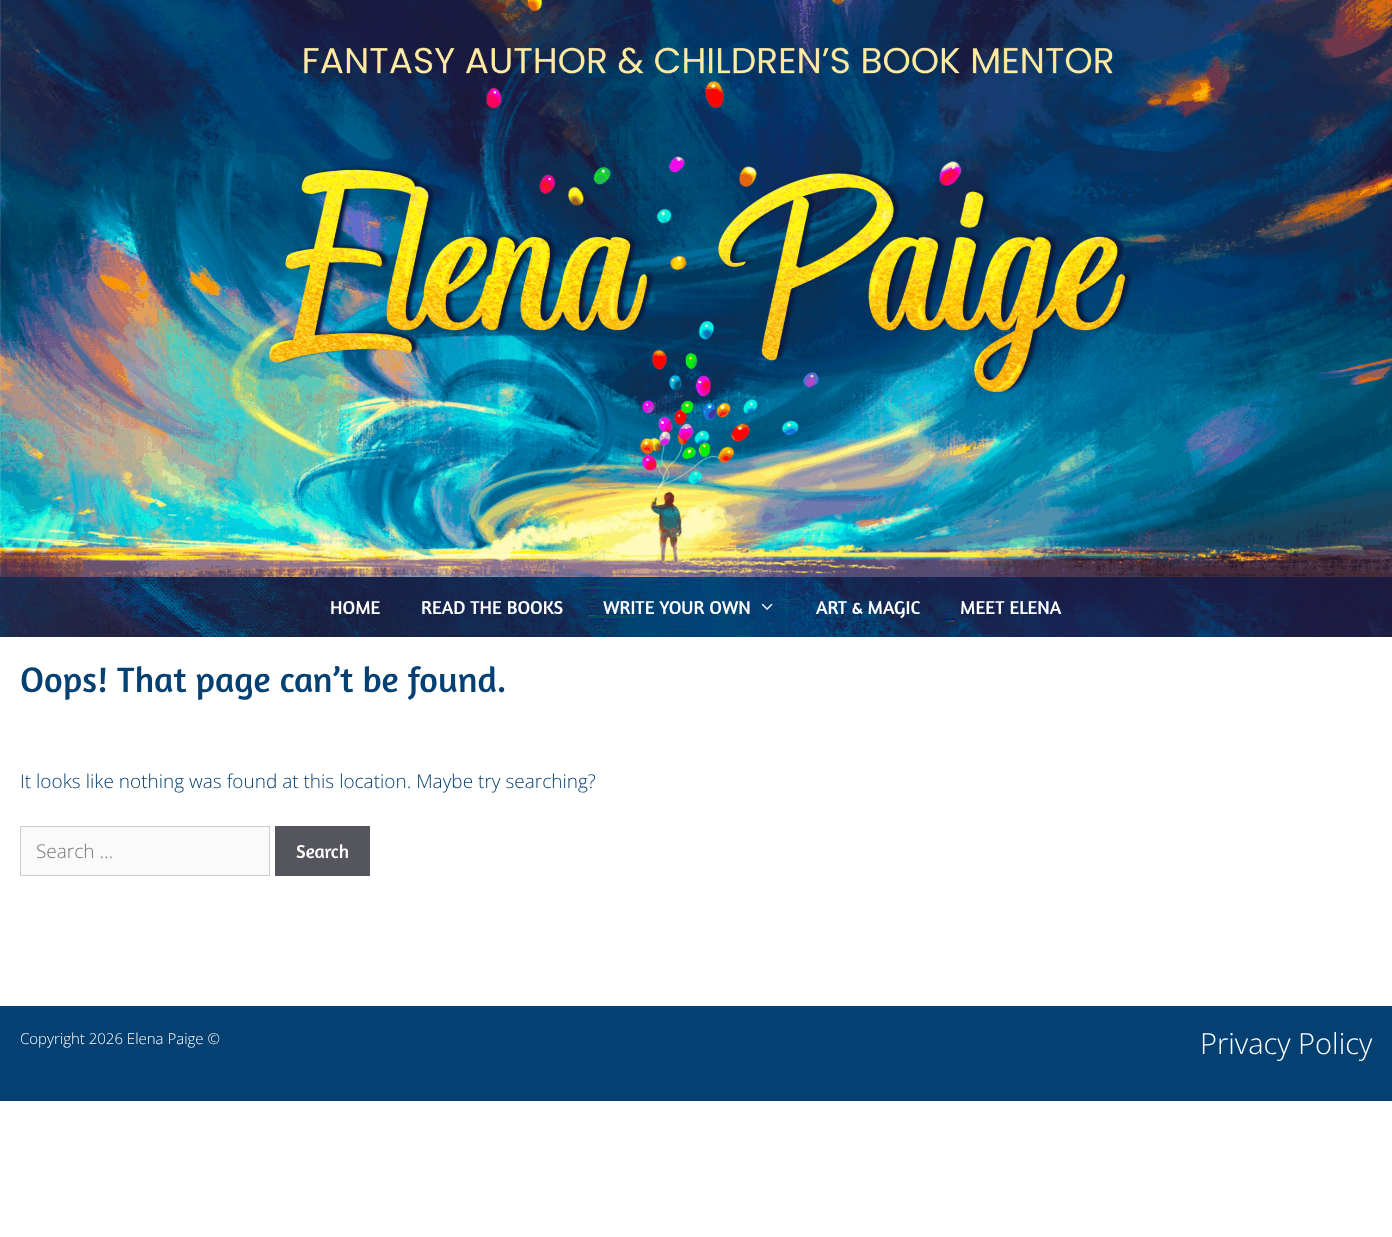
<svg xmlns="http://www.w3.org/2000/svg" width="1392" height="1237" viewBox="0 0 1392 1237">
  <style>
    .t1 { font: 19px Amaranth; fill: #fff; }
    .t2 { font: 36px Amaranth; fill: #054072; }
    .t3 { font: 300 19px Open Sans; fill: #054072; }
    .t4 { font: 300 19px Open Sans; fill: #757575; }
    .t5 { font: 300 15px Open Sans; fill: #fff; }
    .t6 { font: 300 29px Open Sans; fill: #fff; }
  </style>
  <rect width="100%" height="100%" fill="#fff"/>
  <image x="0" y="0" width="1392" height="577" href="images/1.png"/>
  <image x="0" y="577" width="1392" height="60" href="images/2.png"/>
  <text x="330" y="614" class="t1">HOME</text>
  <text x="421" y="614" class="t1">READ THE BOOKS</text>
  <text x="603" y="614" class="t1">WRITE YOUR OWN</text>
  <image x="761" y="603" width="12" height="7" href="images/3.png"/>
  <text x="816" y="614" class="t1">ART &amp; MAGIC</text>
  <text x="960" y="614" class="t1">MEET ELENA</text>
  <text x="20" y="692" class="t2">Oops! That page can’t be found.</text>
  <text x="20" y="788" class="t3">It looks like nothing was found at this location. Maybe try searching?</text>
  <rect x="20.5" y="826.5" width="249" height="49" fill="#fafafa" stroke="#ccc"/>
  <text x="36" y="858" class="t4">Search …</text>
  <rect x="275" y="826" width="95" height="50" fill="#55555e"/>
  <text x="296" y="858" class="t1">Search</text>
  <rect x="0" y="1006" width="1392" height="95" fill="#054072"/>
  <text x="20" y="1044" class="t5">Copyright 2026 Elena Paige ©</text>
  <text x="1200" y="1054" class="t6">Privacy Policy</text>
</svg>
